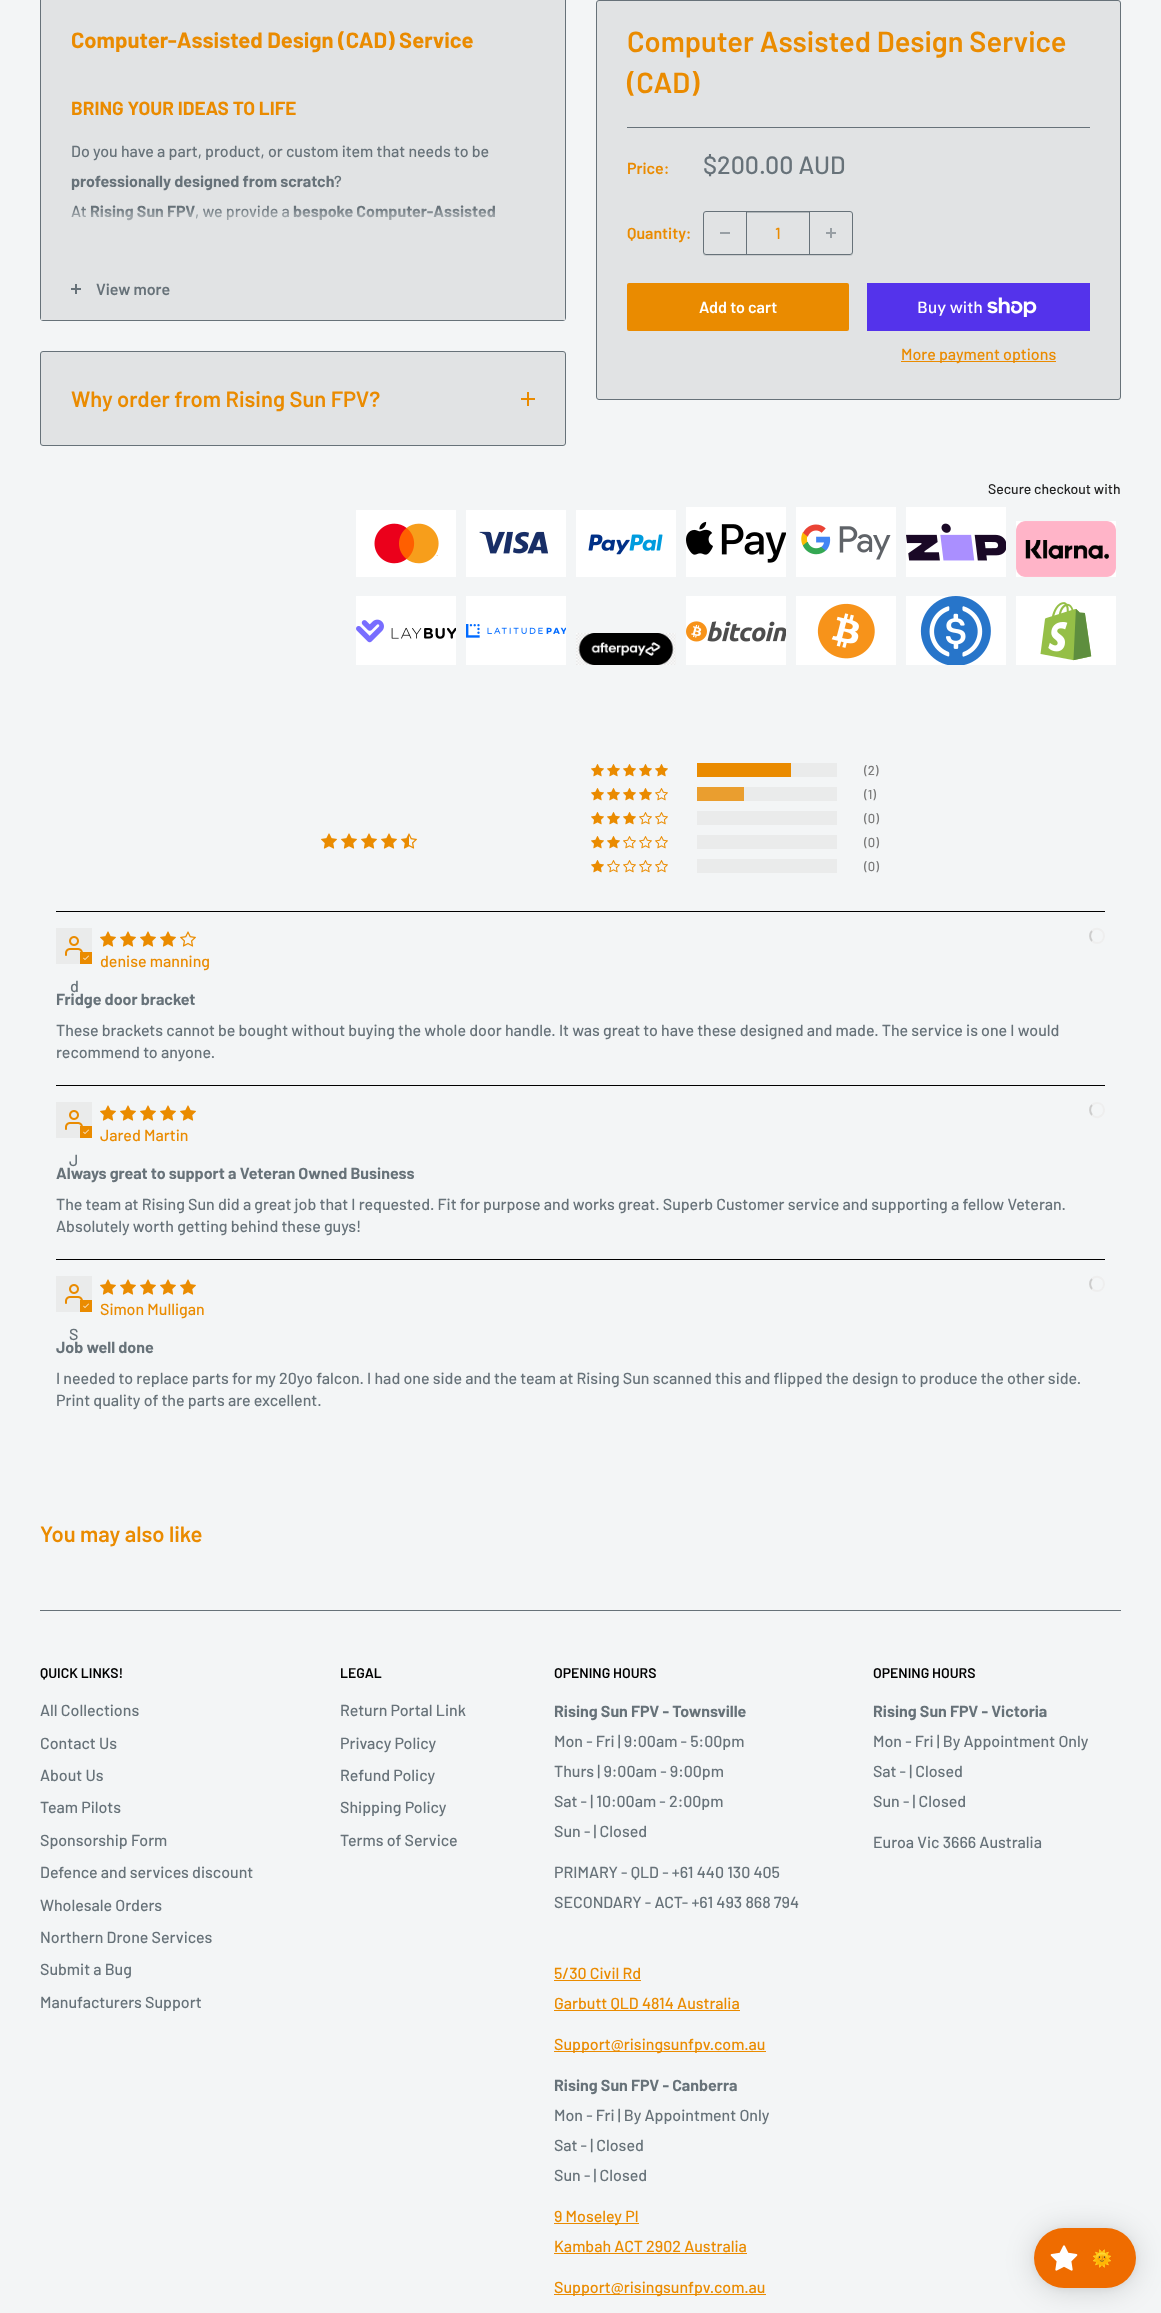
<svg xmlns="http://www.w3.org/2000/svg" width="1161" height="2313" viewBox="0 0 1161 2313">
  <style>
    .t1 { font: bold 22px Barlow; fill: #ea8b00; }
    .t2 { font: bold 19px Barlow; fill: #ea8b00; }
    .t3 { font: 500 16px Barlow; fill: #677279; }
    .t4 { font: bold 16px Barlow; fill: #677279; }
    .t5 { font: 600 16px Barlow; fill: #677279; }
    .t6 { font: 600 29px Barlow; fill: #ea8b00; }
    .t7 { font: 600 16px Barlow; fill: #ea8b00; }
    .t8 { font: 500 25px Barlow; fill: #677279; }
    .t9 { font: 500 16px Barlow; fill: #ea8b00; }
    .t10 { font: 600 16px Barlow; fill: #fff; }
    .t11 { font: 500 16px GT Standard; fill: #fff; }
    .t12 { font: 600 22px Barlow; fill: #ea8b00; }
    .t13 { font: 500 14px Barlow; fill: #232323; }
    .t14 { font: 500 13px Barlow; fill: #7b7b7b; }
    .t15 { font: 600 14px Barlow; fill: #000; }
    .t16 { font: 16px Noto Color Emoji; fill: #fff; }
  </style>
  <defs>
    <linearGradient id="g1" gradientUnits="userSpaceOnUse" x1="303" y1="208" x2="303" y2="258"><stop offset="0" stop-color="#e1e3e4" stop-opacity="0"/><stop offset="0.15" stop-color="#e1e3e4" stop-opacity="0.4"/><stop offset="1" stop-color="#e1e3e4"/></linearGradient>
    <clipPath id="clip1"><path d="M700 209H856V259H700ZM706 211H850C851.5 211 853 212.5 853 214V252C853 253.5 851.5 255 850 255H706C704.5 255 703 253.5 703 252V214C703 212.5 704.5 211 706 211Z" clip-rule="evenodd"/></clipPath>
  </defs>
  <rect width="100%" height="100%" fill="#f3f5f6"/>
  <rect x="40.5" y="-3.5" width="525" height="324" rx="2.5" fill="#e1e3e4" stroke="#677279"/>
  <text x="71" y="48" class="t1">Computer-Assisted Design (CAD) Service</text>
  <text x="71" y="115" class="t2">BRING YOUR IDEAS TO LIFE</text>
  <text x="71" y="157" class="t3">Do you have a part, product, or custom item that needs to be</text>
  <text x="71" y="187" class="t4">professionally designed from scratch</text>
  <text x="334" y="187" class="t3">?</text>
  <text x="71" y="217" class="t3">At</text>
  <text x="90" y="217" class="t4">Rising Sun FPV</text>
  <text x="195" y="217" class="t3">, we provide a</text>
  <text x="293" y="217" class="t4">bespoke Computer-Assisted</text>
  <rect x="41" y="318" width="524" height="2" fill="#e1e3e4"/>
  <rect x="71" y="208" width="425" height="13" fill="url(#g1)"/>
  <rect x="75" y="284" width="2" height="10" fill="#677279"/>
  <rect x="71" y="288" width="10" height="2" fill="#677279"/>
  <text x="96" y="295" class="t5">View more</text>
  <rect x="596.5" y="0.5" width="524" height="399" rx="2.5" fill="#e1e3e4" stroke="#677279"/>
  <text x="627" y="52" class="t6">Computer Assisted Design Service</text>
  <text x="627" y="93" class="t6">(CAD)</text>
  <rect x="627" y="127" width="463" height="1" fill="#677279"/>
  <text x="627" y="174" class="t7">Price:</text>
  <text x="703" y="174" class="t8">$200.00 AUD</text>
  <text x="627" y="239" class="t7">Quantity:</text>
  <g clip-path="url(#clip1)">
    <rect x="703" y="212" width="150" height="44" rx="3" fill="#67727933" filter="blur(0.5px)"/>
  </g>
  <rect x="703.5" y="211.5" width="149" height="43" rx="2.5" fill="none" stroke="#677279"/>
  <rect x="720" y="232" width="10" height="2" fill="#989fa4"/>
  <rect x="747" y="212" width="62" height="1" fill="#b0b6b9"/>
  <rect x="809" y="212" width="1" height="42" fill="#677279"/>
  <rect x="746" y="212" width="1" height="42" fill="#677279"/>
  <text x="775" y="239" class="t9">1</text>
  <image x="826" y="228" width="10" height="10" href="images/1.png"/>
  <rect x="627" y="283" width="222" height="48" rx="2" fill="#ea8b00"/>
  <text x="699" y="313" class="t10">Add to cart</text>
  <rect x="867" y="283" width="223" height="48" fill="#5433eb"/>
  <text x="917" y="313" class="t11">Buy with</text>
  <image x="987" y="297" width="50" height="20" href="images/2.png"/>
  <rect x="901" y="361" width="155" height="1" fill="#ea8b00"/>
  <text x="901" y="360" class="t9">More payment options</text>
  <rect x="40.5" y="351.5" width="525" height="94" rx="2.5" fill="#e1e3e4" stroke="#677279"/>
  <text x="71" y="407" class="t12">Why order from Rising Sun FPV?</text>
  <rect x="527" y="392" width="2" height="14" fill="#ea8b00"/>
  <rect x="521" y="398" width="14" height="2" fill="#ea8b00"/>
  <text x="988" y="494" class="t13">Secure checkout with</text>
  <rect x="356" y="510" width="100" height="67" fill="#fff"/>
  <image x="374" y="523" width="65" height="41" href="images/3.png"/>
  <rect x="466" y="510" width="100" height="67" fill="#fff"/>
  <image x="479" y="531" width="70" height="23" href="images/4.png"/>
  <rect x="576" y="510" width="100" height="67" fill="#fff"/>
  <image x="588" y="534" width="75" height="21" href="images/5.png"/>
  <rect x="686" y="507" width="100" height="70" fill="#fff"/>
  <image x="686" y="521" width="100" height="42" href="images/6.png"/>
  <rect x="796" y="507" width="100" height="70" fill="#fff"/>
  <image x="801" y="524" width="90" height="36" href="images/7.png"/>
  <rect x="906" y="507" width="100" height="70" fill="#fff"/>
  <image x="906" y="523" width="100" height="38" href="images/8.png"/>
  <rect x="1016" y="521" width="100" height="56" fill="#fff"/>
  <image x="1016" y="521" width="100" height="56" href="images/9.png"/>
  <rect x="356" y="596" width="100" height="69" fill="#fff"/>
  <image x="356" y="619" width="100" height="24" href="images/10.png"/>
  <rect x="466" y="596" width="100" height="69" fill="#fff"/>
  <image x="466" y="624" width="100" height="14" href="images/11.png"/>
  <image x="576" y="633" width="100" height="32" href="images/12.png"/>
  <rect x="686" y="596" width="100" height="69" fill="#fff"/>
  <image x="686" y="621" width="100" height="21" href="images/13.png"/>
  <rect x="796" y="596" width="100" height="69" fill="#fff"/>
  <image x="817" y="603" width="58" height="56" href="images/14.png"/>
  <rect x="906" y="596" width="100" height="69" fill="#fff"/>
  <image x="920" y="596" width="71" height="69" href="images/15.png"/>
  <rect x="1016" y="596" width="100" height="69" fill="#fff"/>
  <image x="1040" y="602" width="52" height="59" href="images/16.png"/>
  <image x="321" y="833" width="16" height="16" href="images/17.png"/>
  <image x="341" y="833" width="16" height="16" href="images/17.png"/>
  <image x="361" y="833" width="16" height="16" href="images/17.png"/>
  <image x="381" y="833" width="16" height="16" href="images/17.png"/>
  <image x="401" y="833" width="16" height="16" href="images/18.png"/>
  <image x="591" y="764" width="13" height="13" href="images/19.png"/>
  <image x="607" y="764" width="13" height="13" href="images/19.png"/>
  <image x="623" y="764" width="13" height="13" href="images/19.png"/>
  <image x="639" y="764" width="13" height="13" href="images/19.png"/>
  <image x="655" y="764" width="13" height="13" href="images/19.png"/>
  <rect x="791" y="763" width="46" height="14" fill="#eaebeb"/>
  <rect x="697" y="763" width="94" height="14" fill="#ea8b00"/>
  <text x="864" y="775" class="t14">(2)</text>
  <image x="591" y="788" width="13" height="13" href="images/19.png"/>
  <image x="607" y="788" width="13" height="13" href="images/19.png"/>
  <image x="623" y="788" width="13" height="13" href="images/19.png"/>
  <image x="639" y="788" width="13" height="13" href="images/19.png"/>
  <image x="655" y="788" width="13" height="13" href="images/20.png"/>
  <rect x="744" y="787" width="93" height="14" fill="#eaebeb"/>
  <rect x="697" y="787" width="47" height="14" fill="#ea9e2f"/>
  <text x="864" y="799" class="t14">(1)</text>
  <image x="591" y="812" width="13" height="13" href="images/19.png"/>
  <image x="607" y="812" width="13" height="13" href="images/19.png"/>
  <image x="623" y="812" width="13" height="13" href="images/19.png"/>
  <image x="639" y="812" width="13" height="13" href="images/20.png"/>
  <image x="655" y="812" width="13" height="13" href="images/20.png"/>
  <rect x="697" y="811" width="140" height="14" fill="#eaebeb"/>
  <text x="864" y="823" class="t14">(0)</text>
  <image x="591" y="836" width="13" height="13" href="images/19.png"/>
  <image x="607" y="836" width="13" height="13" href="images/19.png"/>
  <image x="623" y="836" width="13" height="13" href="images/20.png"/>
  <image x="639" y="836" width="13" height="13" href="images/20.png"/>
  <image x="655" y="836" width="13" height="13" href="images/20.png"/>
  <rect x="697" y="835" width="140" height="14" fill="#eaebeb"/>
  <text x="864" y="847" class="t14">(0)</text>
  <image x="591" y="860" width="13" height="13" href="images/19.png"/>
  <image x="607" y="860" width="13" height="13" href="images/20.png"/>
  <image x="623" y="860" width="13" height="13" href="images/20.png"/>
  <image x="639" y="860" width="13" height="13" href="images/20.png"/>
  <image x="655" y="860" width="13" height="13" href="images/20.png"/>
  <rect x="697" y="859" width="140" height="14" fill="#eaebeb"/>
  <text x="864" y="871" class="t14">(0)</text>
  <rect x="56" y="911" width="1049" height="1" fill="#000"/>
  <image x="100" y="931" width="16" height="16" href="images/17.png"/>
  <image x="120" y="931" width="16" height="16" href="images/17.png"/>
  <image x="140" y="931" width="16" height="16" href="images/17.png"/>
  <image x="160" y="931" width="16" height="16" href="images/17.png"/>
  <image x="180" y="931" width="16" height="16" href="images/21.png"/>
  <path d="M1092 931C1093.5 929.5 1096 928.5 1098.5 929C1106.5 931 1105.5 943 1097 943C1095 943 1093.5 942.5 1092 941" fill="none" stroke="#eee" stroke-width="2"/>
  <path d="M1092 941C1089.5 938.5 1089.5 933.5 1092 931" fill="none" stroke="#ccc" stroke-width="2"/>
  <text x="100" y="967" class="t9">denise manning</text>
  <rect x="56" y="928" width="36" height="36" fill="#eaebeb"/>
  <image x="65" y="936" width="18" height="20" href="images/22.png"/>
  <rect x="80" y="952" width="12" height="12" fill="#ea8b00"/>
  <image x="83" y="955" width="6" height="5" href="images/23.png"/>
  <text x="70" y="992" class="t3">d</text>
  <text x="56" y="1005" class="t4">Fridge door bracket</text>
  <text x="56" y="1036" class="t3">These brackets cannot be bought without buying the whole door handle. It was great to have these designed and made. The service is one I would</text>
  <text x="56" y="1058" class="t3">recommend to anyone.</text>
  <rect x="56" y="1085" width="1049" height="1" fill="#000"/>
  <image x="100" y="1105" width="16" height="16" href="images/17.png"/>
  <image x="120" y="1105" width="16" height="16" href="images/17.png"/>
  <image x="140" y="1105" width="16" height="16" href="images/17.png"/>
  <image x="160" y="1105" width="16" height="16" href="images/17.png"/>
  <image x="180" y="1105" width="16" height="16" href="images/17.png"/>
  <path d="M1092 1105C1093.5 1103.5 1095 1103 1097 1103C1105.5 1103 1106.5 1115 1098.5 1117C1096 1117.5 1093.5 1116.5 1092 1115" fill="none" stroke="#eee" stroke-width="2"/>
  <path d="M1092 1115C1089.5 1112.5 1089.5 1107.5 1092 1105" fill="none" stroke="#ccc" stroke-width="2"/>
  <text x="100" y="1141" class="t9">Jared Martin</text>
  <rect x="56" y="1102" width="36" height="36" fill="#eaebeb"/>
  <image x="65" y="1110" width="18" height="20" href="images/22.png"/>
  <rect x="80" y="1126" width="12" height="12" fill="#ea8b00"/>
  <image x="83" y="1129" width="6" height="5" href="images/23.png"/>
  <text x="69" y="1166" class="t3">J</text>
  <text x="56" y="1179" class="t4">Always great to support a Veteran Owned Business</text>
  <text x="56" y="1210" class="t3">The team at Rising Sun did a great job that I requested. Fit for purpose and works great. Superb Customer service and supporting a fellow Veteran.</text>
  <text x="56" y="1232" class="t3">Absolutely worth getting behind these guys!</text>
  <rect x="56" y="1259" width="1049" height="1" fill="#000"/>
  <image x="100" y="1279" width="16" height="16" href="images/17.png"/>
  <image x="120" y="1279" width="16" height="16" href="images/17.png"/>
  <image x="140" y="1279" width="16" height="16" href="images/17.png"/>
  <image x="160" y="1279" width="16" height="16" href="images/17.png"/>
  <image x="180" y="1279" width="16" height="16" href="images/17.png"/>
  <path d="M1092 1279C1093.5 1277.5 1096 1276.5 1098.5 1277C1106.5 1279 1105.5 1291 1097 1291C1095 1291 1093.5 1290.5 1092 1289" fill="none" stroke="#eee" stroke-width="2"/>
  <path d="M1092 1289C1089.5 1286.5 1089.5 1281.5 1092 1279" fill="none" stroke="#ccc" stroke-width="2"/>
  <text x="100" y="1315" class="t9">Simon Mulligan</text>
  <rect x="56" y="1276" width="36" height="36" fill="#eaebeb"/>
  <image x="65" y="1284" width="18" height="20" href="images/22.png"/>
  <rect x="80" y="1300" width="12" height="12" fill="#ea8b00"/>
  <image x="83" y="1303" width="6" height="5" href="images/23.png"/>
  <text x="69" y="1340" class="t3">S</text>
  <text x="56" y="1353" class="t4">Job well done</text>
  <text x="56" y="1384" class="t3">I needed to replace parts for my 20yo falcon. I had one side and the team at Rising Sun scanned this and flipped the design to produce the other side.</text>
  <text x="56" y="1406" class="t3">Print quality of the parts are excellent.</text>
  <text x="40" y="1542" class="t12">You may also like</text>
  <rect x="40" y="1610" width="1081" height="1" fill="#677279"/>
  <text x="40" y="1678" class="t15">QUICK LINKS!</text>
  <text x="40" y="1716" class="t3">All Collections</text>
  <text x="40" y="1749" class="t3">Contact Us</text>
  <text x="40" y="1781" class="t3">About Us</text>
  <text x="40" y="1813" class="t3">Team Pilots</text>
  <text x="40" y="1846" class="t3">Sponsorship Form</text>
  <text x="40" y="1878" class="t3">Defence and services discount</text>
  <text x="40" y="1911" class="t3">Wholesale Orders</text>
  <text x="40" y="1943" class="t3">Northern Drone Services</text>
  <text x="40" y="1975" class="t3">Submit a Bug</text>
  <text x="40" y="2008" class="t3">Manufacturers Support</text>
  <text x="340" y="1678" class="t15">LEGAL</text>
  <text x="340" y="1716" class="t3">Return Portal Link</text>
  <text x="340" y="1749" class="t3">Privacy Policy</text>
  <text x="340" y="1781" class="t3">Refund Policy</text>
  <text x="340" y="1813" class="t3">Shipping Policy</text>
  <text x="340" y="1846" class="t3">Terms of Service</text>
  <text x="554" y="1678" class="t15">OPENING HOURS</text>
  <text x="554" y="1717" class="t4">Rising Sun FPV - Townsville</text>
  <text x="554" y="1747" class="t3">Mon - Fri | 9:00am - 5:00pm</text>
  <text x="554" y="1777" class="t3">Thurs | 9:00am - 9:00pm</text>
  <text x="554" y="1807" class="t3">Sat - | 10:00am - 2:00pm</text>
  <text x="554" y="1837" class="t3">Sun - | Closed</text>
  <text x="554" y="1878" class="t3">PRIMARY - QLD - +61 440 130 405</text>
  <text x="554" y="1908" class="t3">SECONDARY - ACT- +61 493 868 794</text>
  <text x="554" y="1979" class="t9">5/30 Civil Rd</text>
  <rect x="554" y="1980" width="87" height="1" fill="#ea8b00"/>
  <rect x="554" y="2010" width="186" height="1" fill="#ea8b00"/>
  <text x="554" y="2009" class="t9">Garbutt QLD 4814 Australia</text>
  <rect x="554" y="2051" width="212" height="1" fill="#ea8b00"/>
  <text x="554" y="2050" class="t9">Support@risingsunfpv.com.au</text>
  <text x="554" y="2091" class="t4">Rising Sun FPV - Canberra</text>
  <text x="554" y="2121" class="t3">Mon - Fri | By Appointment Only</text>
  <text x="554" y="2151" class="t3">Sat - | Closed</text>
  <text x="554" y="2181" class="t3">Sun - | Closed</text>
  <rect x="554" y="2223" width="85" height="1" fill="#ea8b00"/>
  <text x="554" y="2222" class="t9">9 Moseley Pl</text>
  <text x="554" y="2252" class="t9">Kambah ACT 2902 Australia</text>
  <rect x="554" y="2253" width="193" height="1" fill="#ea8b00"/>
  <rect x="554" y="2294" width="212" height="1" fill="#ea8b00"/>
  <text x="554" y="2293" class="t9">Support@risingsunfpv.com.au</text>
  <text x="873" y="1678" class="t15">OPENING HOURS</text>
  <text x="873" y="1717" class="t4">Rising Sun FPV - Victoria</text>
  <text x="873" y="1747" class="t3">Mon - Fri | By Appointment Only</text>
  <text x="873" y="1777" class="t3">Sat - | Closed</text>
  <text x="873" y="1807" class="t3">Sun - | Closed</text>
  <text x="873" y="1848" class="t3">Euroa Vic 3666 Australia</text>
  <rect x="1034" y="2230" width="102" height="60" rx="30" fill="#00000026" filter="blur(15px)"/>
  <rect x="1034" y="2229" width="102" height="60" rx="30" fill="#0000000d" filter="blur(3px)"/>
  <rect x="1034" y="2228" width="102" height="60" rx="30" fill="#ef6c00"/>
  <image x="1050" y="2245" width="28" height="26" href="images/24.png"/>
  <text x="1092" y="2264" class="t16">🌞</text>
</svg>
